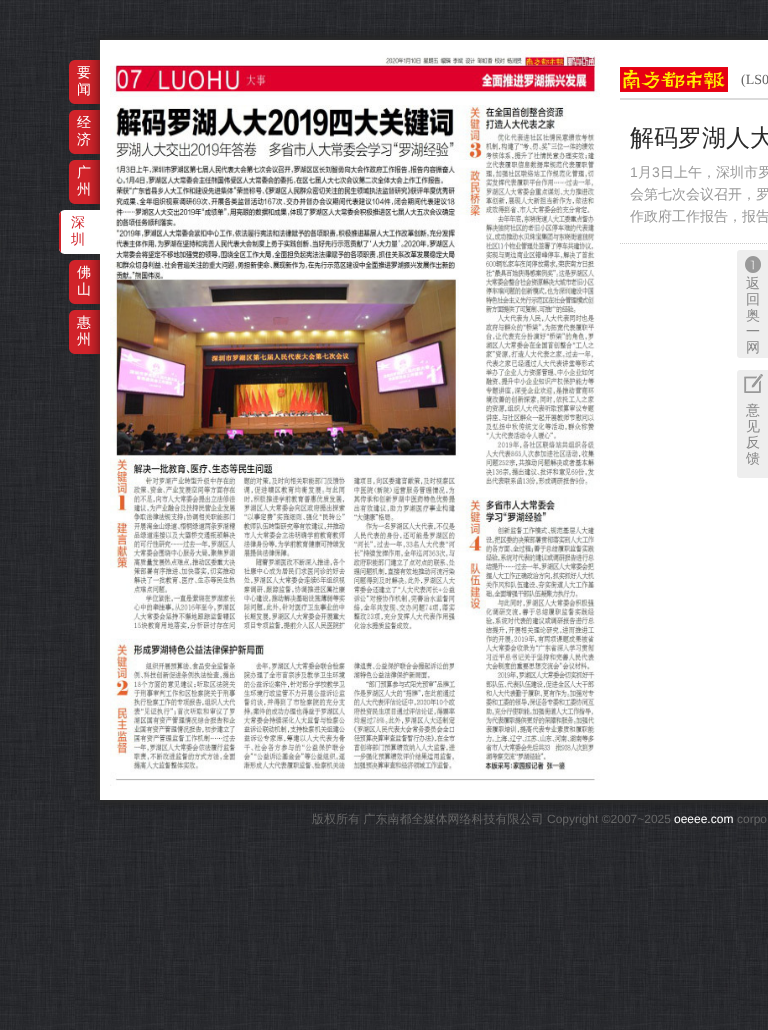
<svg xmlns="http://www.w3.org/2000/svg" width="768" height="1030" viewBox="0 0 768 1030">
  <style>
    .t1 { font: 500 14px WenQuanYi Zen Hei; fill: #fff; }
    .t2 { font: 500 14px WenQuanYi Zen Hei; fill: #d1232a; }
    .t3 { font: 14px Liberation Serif; fill: #666; }
    .t4 { font: 500 24px WenQuanYi Zen Hei; fill: #2b2b2b; }
    .t5 { font: 14px Liberation Sans; fill: #999; }
    .t6 { font: 500 14px WenQuanYi Zen Hei; fill: #999; }
    .t7 { font: 500 14px WenQuanYi Zen Hei; fill: #888; }
    .t8 { font: 500 12px WenQuanYi Zen Hei; fill: #666; }
    .t9 { font: 12px Liberation Sans; fill: #666; }
    .t10 { font: 12px Liberation Sans; fill: #fff; }
  </style>
  <rect width="100%" height="100%" fill="#fff"/>
  <image x="0" y="0" width="768" height="1030" href="images/1.png"/>
  <rect x="101" y="39" width="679" height="760" fill="#111" filter="blur(4px)"/>
  <rect x="101" y="41" width="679" height="760" fill="#111" filter="blur(4px)"/>
  <rect x="101" y="39" width="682" height="760" fill="#333" filter="blur(5px)"/>
  <rect x="99" y="41" width="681" height="760" fill="#333" filter="blur(4px)"/>
  <image x="69" y="60" width="31" height="44" href="images/2.png"/>
  <text x="77" y="77" class="t1">要</text>
  <text x="77" y="94" class="t1">闻</text>
  <image x="69" y="110" width="31" height="44" href="images/3.png"/>
  <text x="77" y="127" class="t1">经</text>
  <text x="77" y="144" class="t1">济</text>
  <image x="69" y="160" width="31" height="44" href="images/4.png"/>
  <text x="77" y="177" class="t1">广</text>
  <text x="77" y="194" class="t1">州</text>
  <image x="59" y="210" width="41" height="44" href="images/5.png"/>
  <text x="71" y="227" class="t2">深</text>
  <text x="71" y="244" class="t2">圳</text>
  <image x="69" y="260" width="31" height="44" href="images/6.png"/>
  <text x="77" y="277" class="t1">佛</text>
  <text x="77" y="294" class="t1">山</text>
  <image x="69" y="310" width="31" height="44" href="images/7.png"/>
  <text x="77" y="327" class="t1">惠</text>
  <text x="77" y="344" class="t1">州</text>
  <rect x="100" y="40" width="668" height="760" fill="#fff"/>
  <image x="110" y="50" width="490" height="736" href="images/8.png"/>
  <rect x="620" y="98" width="148" height="2" fill="#dbdbdb"/>
  <image x="620" y="67" width="108" height="25" href="images/9.png"/>
  <text x="741" y="84" class="t3">(LS0</text>
  <path d="M620 243.5H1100" fill="none" stroke="#ccc" stroke-dasharray="1 1"/>
  <text x="630" y="146" class="t4">解码罗湖人大</text>
  <text x="630" y="177" class="t5">1</text>
  <text x="638" y="177" class="t6">月</text>
  <text x="652" y="177" class="t5">3</text>
  <text x="660" y="177" class="t6">日上午，深圳市罗</text>
  <text x="630" y="199" class="t6">会第七次会议召开，罗</text>
  <text x="630" y="221" class="t6">作政府工作报告，报告</text>
  <image x="737" y="250" width="31" height="108" href="images/10.png"/>
  <text x="746" y="288" class="t7">返</text>
  <text x="746" y="304" class="t7">回</text>
  <text x="746" y="320" class="t7">奥</text>
  <text x="746" y="336" class="t7">一</text>
  <text x="746" y="352" class="t7">网</text>
  <image x="737" y="370" width="31" height="108" href="images/11.png"/>
  <text x="746" y="415" class="t7">意</text>
  <text x="746" y="431" class="t7">见</text>
  <text x="746" y="447" class="t7">反</text>
  <text x="746" y="463" class="t7">馈</text>
  <text x="312" y="823" class="t8">版权所有 广东南都全媒体网络科技有限公司</text>
  <text x="547" y="823" class="t9">Copyright ©2007~2025</text>
  <text x="674" y="823" class="t10">oeeee.com</text>
  <text x="737" y="823" class="t9">corpo</text>
</svg>
